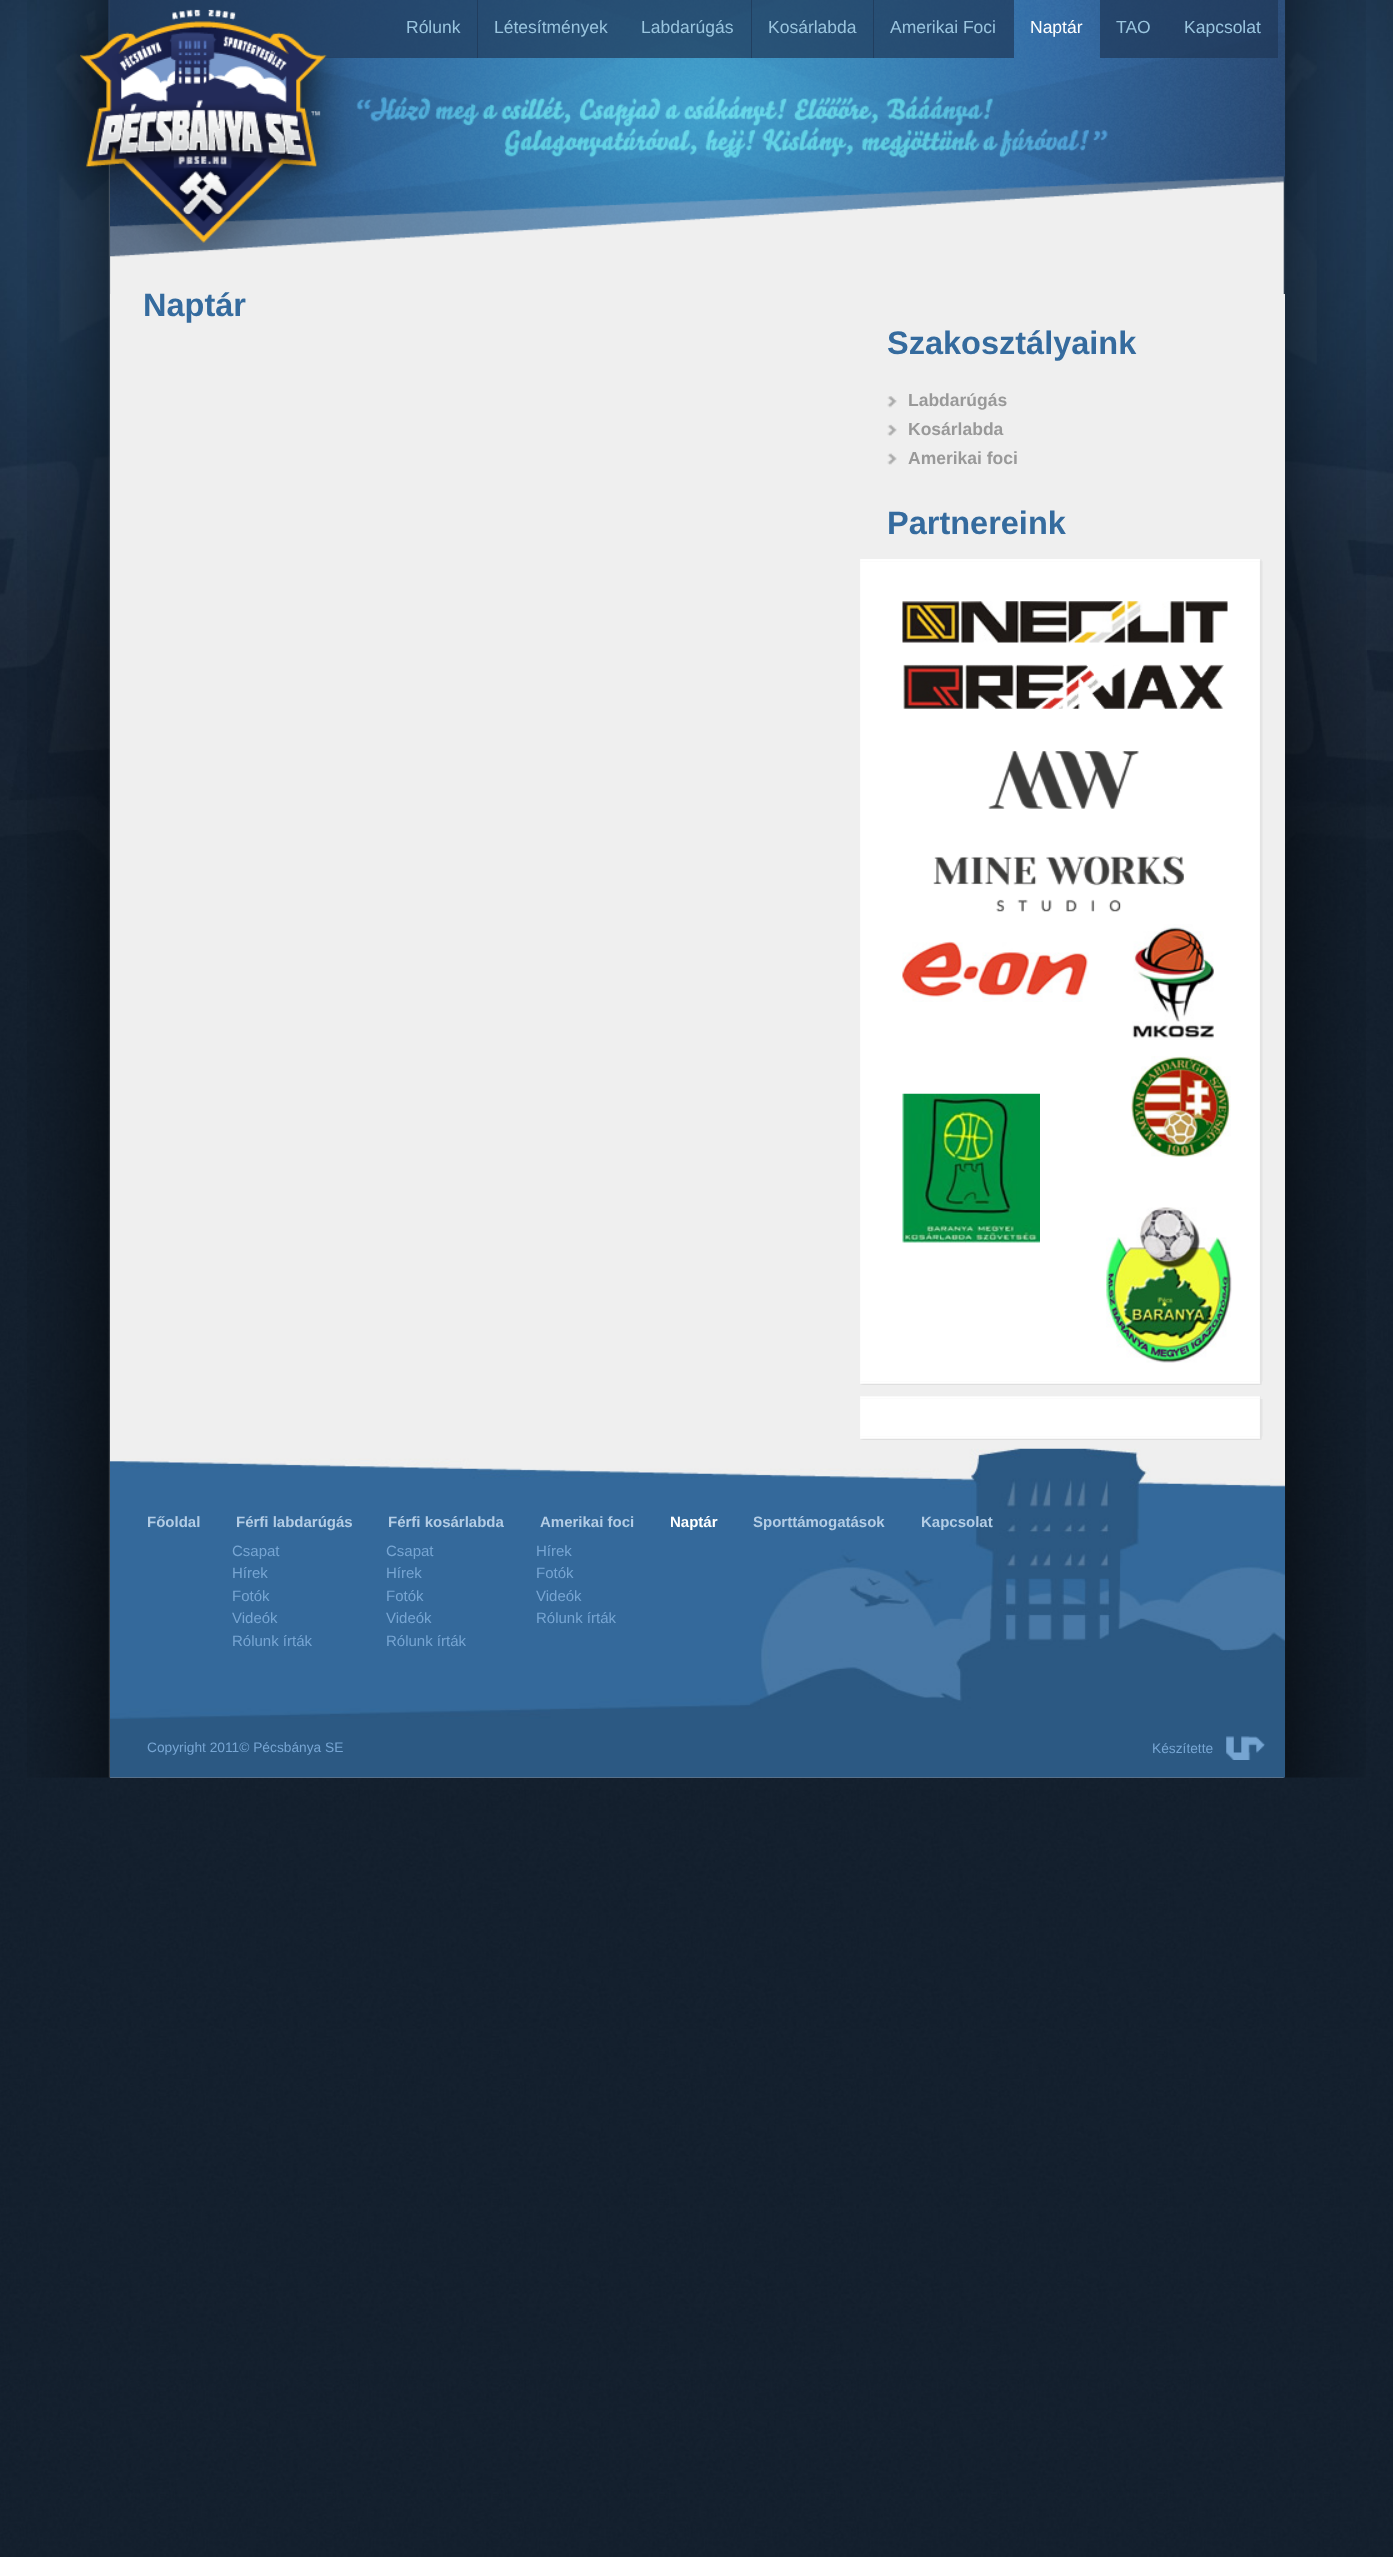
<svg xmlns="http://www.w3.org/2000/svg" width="1393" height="2557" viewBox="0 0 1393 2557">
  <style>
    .t1 { font: 17.5px Liberation Sans; fill: #9ac5df; }
    .t2 { font: 17.5px Liberation Sans; fill: #fff; }
    .t3 { font: bold 32.5px Liberation Sans; fill: #356b9e; }
    .t4 { font: bold 17.5px Liberation Sans; fill: #999; }
    .t5 { font: bold 15px Liberation Sans; fill: #b2cce5; }
    .t6 { font: bold 15px Liberation Sans; fill: #fff; }
    .t7 { font: 15px Liberation Sans; fill: #76a5d3; }
    .t8 { font: 13.75px Liberation Sans; fill: #76a5d3; }
  </style>
  <rect width="100%" height="100%" fill="#fff"/>
  <image x="0" y="1431" width="1393" height="1126" href="images/1.png"/>
  <image x="0" y="0" width="1393" height="1431" href="images/2.png"/>
  <image x="27" y="0" width="1339" height="1778" href="images/3.png"/>
  <image x="110" y="0" width="1175" height="257" href="images/5.png"/>
  <rect x="108" y="0" width="282" height="58" fill="#1f3857b3"/>
  <image x="80" y="9" width="247" height="234" href="images/4.png"/>
  <rect x="390" y="0" width="88" height="58" fill="#1f3857b3"/>
  <text x="406" y="33" class="t1">Rólunk</text>
  <rect x="477" y="0" width="148" height="58" fill="#1f3857b3"/>
  <text x="494" y="33" class="t1">Létesítmények</text>
  <rect x="625" y="0" width="127" height="58" fill="#1f3857b3"/>
  <text x="641" y="33" class="t1">Labdarúgás</text>
  <rect x="751" y="0" width="123" height="58" fill="#1f3857b3"/>
  <text x="768" y="33" class="t1">Kosárlabda</text>
  <rect x="873" y="0" width="141" height="58" fill="#1f3857b3"/>
  <text x="890" y="33" class="t1">Amerikai Foci</text>
  <text x="1030" y="33" class="t2">Naptár</text>
  <rect x="1100" y="0" width="69" height="58" fill="#1f3857b3"/>
  <text x="1116" y="33" class="t1">TAO</text>
  <rect x="1169" y="0" width="109" height="58" fill="#1f3857b3"/>
  <text x="1184" y="33" class="t1">Kapcsolat</text>
  <rect x="110" y="294" width="1175" height="1155" fill="#efefef"/>
  <text x="143" y="316" class="t3">Naptár</text>
  <text x="887" y="354" class="t3">Szakosztályaink</text>
  <image x="887" y="396" width="10" height="12" href="images/6.png"/>
  <text x="908" y="406" class="t4">Labdarúgás</text>
  <image x="887" y="424" width="10" height="12" href="images/7.png"/>
  <text x="908" y="435" class="t4">Kosárlabda</text>
  <image x="887" y="453" width="10" height="12" href="images/8.png"/>
  <text x="908" y="464" class="t4">Amerikai foci</text>
  <text x="887" y="534" class="t3">Partnereink</text>
  <image x="860" y="559" width="402" height="3" href="images/9.png"/>
  <image x="860" y="561" width="403" height="821" href="images/10.png"/>
  <image x="902" y="601" width="326" height="42" href="images/11.png"/>
  <image x="903" y="664" width="321" height="45" href="images/12.png"/>
  <image x="933" y="751" width="251" height="161" href="images/13.png"/>
  <image x="902" y="941" width="187" height="61" href="images/14.png"/>
  <image x="1132" y="924" width="82" height="116" href="images/15.png"/>
  <image x="902" y="1093" width="138" height="150" href="images/16.png"/>
  <image x="1131" y="1056" width="100" height="101" href="images/17.png"/>
  <image x="1106" y="1207" width="126" height="156" href="images/18.png"/>
  <image x="860" y="1381" width="402" height="4" href="images/19.png"/>
  <image x="860" y="1396" width="401" height="3" href="images/20.png"/>
  <image x="860" y="1399" width="403" height="38" href="images/21.png"/>
  <image x="860" y="1436" width="402" height="4" href="images/19.png"/>
  <image x="110" y="1448" width="1175" height="330" href="images/22.png"/>
  <text x="147" y="1527" class="t5">Főoldal</text>
  <text x="236" y="1527" class="t5">Férfi labdarúgás</text>
  <text x="388" y="1527" class="t5">Férfi kosárlabda</text>
  <text x="540" y="1527" class="t5">Amerikai foci</text>
  <text x="670" y="1527" class="t6">Naptár</text>
  <text x="753" y="1527" class="t5">Sporttámogatások</text>
  <text x="921" y="1527" class="t5">Kapcsolat</text>
  <text x="232" y="1556" class="t7">Csapat</text>
  <text x="232" y="1578" class="t7">Hírek</text>
  <text x="232" y="1601" class="t7">Fotók</text>
  <text x="232" y="1623" class="t7">Videók</text>
  <text x="232" y="1646" class="t7">Rólunk írták</text>
  <text x="386" y="1556" class="t7">Csapat</text>
  <text x="386" y="1578" class="t7">Hírek</text>
  <text x="386" y="1601" class="t7">Fotók</text>
  <text x="386" y="1623" class="t7">Videók</text>
  <text x="386" y="1646" class="t7">Rólunk írták</text>
  <text x="536" y="1556" class="t7">Hírek</text>
  <text x="536" y="1578" class="t7">Fotók</text>
  <text x="536" y="1601" class="t7">Videók</text>
  <text x="536" y="1623" class="t7">Rólunk írták</text>
  <text x="147" y="1752" class="t8">Copyright 2011© Pécsbánya SE</text>
  <text x="1152" y="1753" class="t8">Készítette</text>
  <image x="1226" y="1736" width="39" height="24" href="images/23.png"/>
</svg>
